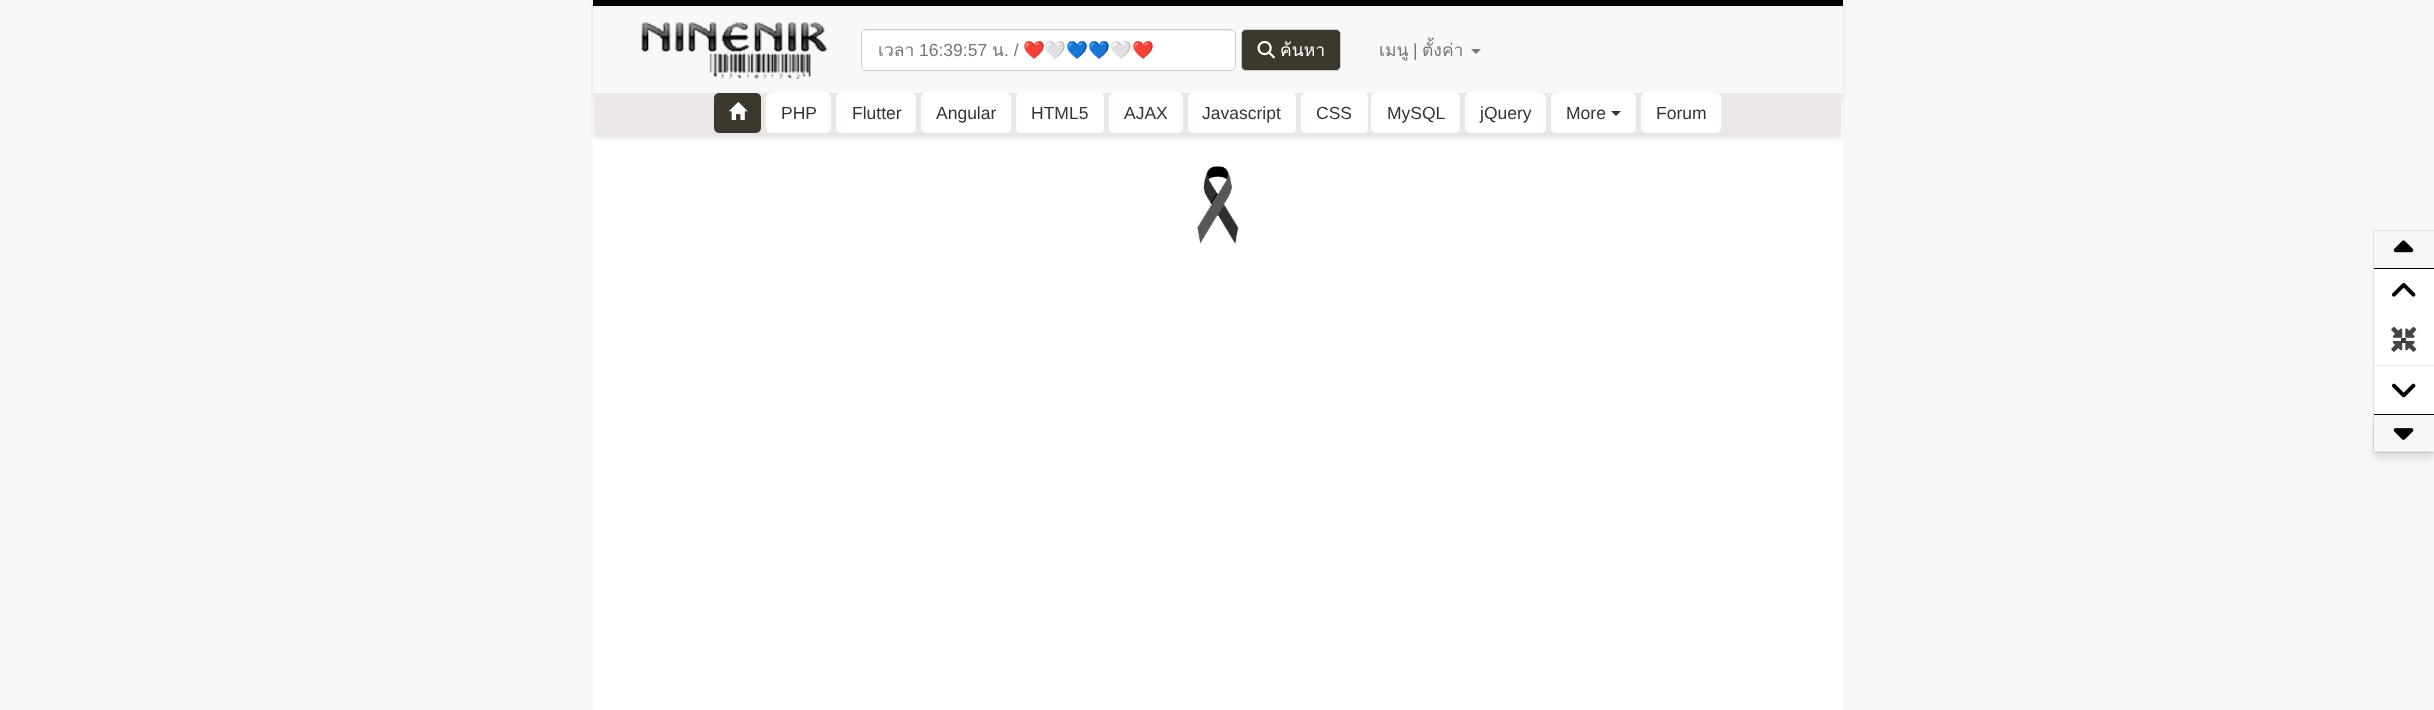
<svg xmlns="http://www.w3.org/2000/svg" width="2434" height="710" viewBox="0 0 2434 710">
  <style>
    .t1 { font: 17.5px Loma; fill: #777; }
    .t2 { font: 17.5px Liberation Sans; fill: #777; }
    .t3 { font: 17.5px Noto Color Emoji; fill: #777; }
    .t4 { font: 17.5px Loma; fill: #fff; }
    .t5 { font: 17.5px Liberation Sans; fill: #333; }
  </style>
  <defs>
    <clipPath id="clip1"><path d="M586 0H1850V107H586ZM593 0H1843V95H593Z" clip-rule="evenodd"/></clipPath>
  </defs>
  <rect width="100%" height="100%" fill="#f7f7f7"/>
  <rect x="593" y="90" width="1250" height="620" fill="#fff"/>
  <rect x="593" y="0" width="1250" height="95" rx="5" fill="#f8f8f8"/>
  <g clip-path="url(#clip1)">
    <rect x="593" y="5" width="1250" height="95" fill="#0000001a" filter="blur(2px)"/>
  </g>
  <rect x="593" y="0" width="1250" height="6" fill="#000"/>
  <rect x="593" y="94" width="1250" height="1" fill="#ddd"/>
  <image x="641" y="22" width="187" height="57" href="images/1.png"/>
  <rect x="861" y="29" width="375" height="42" rx="5" fill="#fff"/>
  <path d="M866 31H1231C1233 31 1235 33 1235 35V34C1235 32 1233 30 1231 30H867C866 30 864 31 864 32Z" fill="#ececec"/>
  <rect x="861.5" y="29.5" width="374" height="41" rx="4.5" fill="none" stroke="#ccc"/>
  <text x="878" y="56" class="t1">เวลา</text>
  <text x="919" y="56" class="t2">16:39:57</text>
  <text x="992" y="56" class="t1">น</text>
  <text x="1004" y="56" class="t2">. /</text>
  <text x="1023" y="56" class="t3">❤️🤍💙💙🤍❤️</text>
  <rect x="1241.5" y="29.5" width="99" height="41" rx="4.5" fill="#3c382e" stroke="#ccc"/>
  <image x="1257" y="40" width="18" height="19" href="images/2.png"/>
  <text x="1280" y="56" class="t4">ค้นหา</text>
  <text x="1413" y="56" class="t2">|</text>
  <text x="1422" y="56" class="t1">ตั้งค่า</text>
  <text x="1379" y="56" class="t1">เมนู</text>
  <path d="M1471 49H1481L1476 54Z" fill="#777"/>
  <rect x="594" y="98" width="1247" height="40" fill="#0000001a" filter="blur(2px)"/>
  <rect x="594" y="93" width="1247" height="40" fill="#ece6e6"/>
  <rect x="714" y="93" width="47" height="40" rx="5" fill="#3c382e"/>
  <image x="728" y="101" width="20" height="19" href="images/3.png"/>
  <rect x="766" y="93" width="65" height="40" rx="5" fill="#fff"/>
  <text x="781" y="119" class="t5">PHP</text>
  <rect x="836" y="93" width="80" height="40" rx="5" fill="#fff"/>
  <text x="852" y="119" class="t5">Flutter</text>
  <rect x="921" y="93" width="90" height="40" rx="5" fill="#fff"/>
  <text x="936" y="119" class="t5">Angular</text>
  <rect x="1016" y="93" width="88" height="40" rx="5" fill="#fff"/>
  <text x="1031" y="119" class="t5">HTML5</text>
  <rect x="1109" y="93" width="74" height="40" rx="5" fill="#fff"/>
  <text x="1124" y="119" class="t5">AJAX</text>
  <rect x="1188" y="93" width="108" height="40" rx="5" fill="#fff"/>
  <text x="1202" y="119" class="t5">Javascript</text>
  <rect x="1301" y="93" width="67" height="40" rx="5" fill="#fff"/>
  <text x="1316" y="119" class="t5">CSS</text>
  <rect x="1371" y="93" width="89" height="40" rx="5" fill="#fff"/>
  <text x="1387" y="119" class="t5">MySQL</text>
  <rect x="1465" y="93" width="81" height="40" rx="5" fill="#fff"/>
  <text x="1480" y="119" class="t5">jQuery</text>
  <rect x="1551" y="93" width="85" height="40" rx="5" fill="#fff"/>
  <text x="1566" y="119" class="t5">More</text>
  <path d="M1611 111H1621L1616 116Z" fill="#333"/>
  <rect x="1641" y="93" width="80" height="40" rx="5" fill="#fff"/>
  <text x="1656" y="119" class="t5">Forum</text>
  <image x="1197" y="166" width="42" height="78" href="images/4.png"/>
  <rect x="2374" y="269" width="60" height="183" fill="#fff"/>
  <rect x="2373.5" y="230.5" width="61" height="222" fill="none" stroke="#ddd"/>
  <rect x="2374" y="268" width="60" height="1" fill="#000"/>
  <image x="2393" y="240" width="21" height="13" href="images/5.png"/>
  <image x="2392" y="283" width="24" height="14" href="images/6.png"/>
  <rect x="2374" y="365" width="60" height="1" fill="#ececec"/>
  <rect x="2401" y="338" width="5" height="5" fill="#3c382e"/>
  <image x="2391" y="326" width="26" height="26" href="images/7.png"/>
  <image x="2392" y="383" width="24" height="15" href="images/8.png"/>
  <rect x="2374" y="420" width="60" height="38" fill="#0000001a" filter="blur(3px)"/>
  <rect x="2374" y="415" width="60" height="36" fill="#f7f7f7"/>
  <rect x="2374" y="414" width="60" height="1" fill="#000"/>
  <image x="2393" y="428" width="21" height="12" href="images/9.png"/>
</svg>
